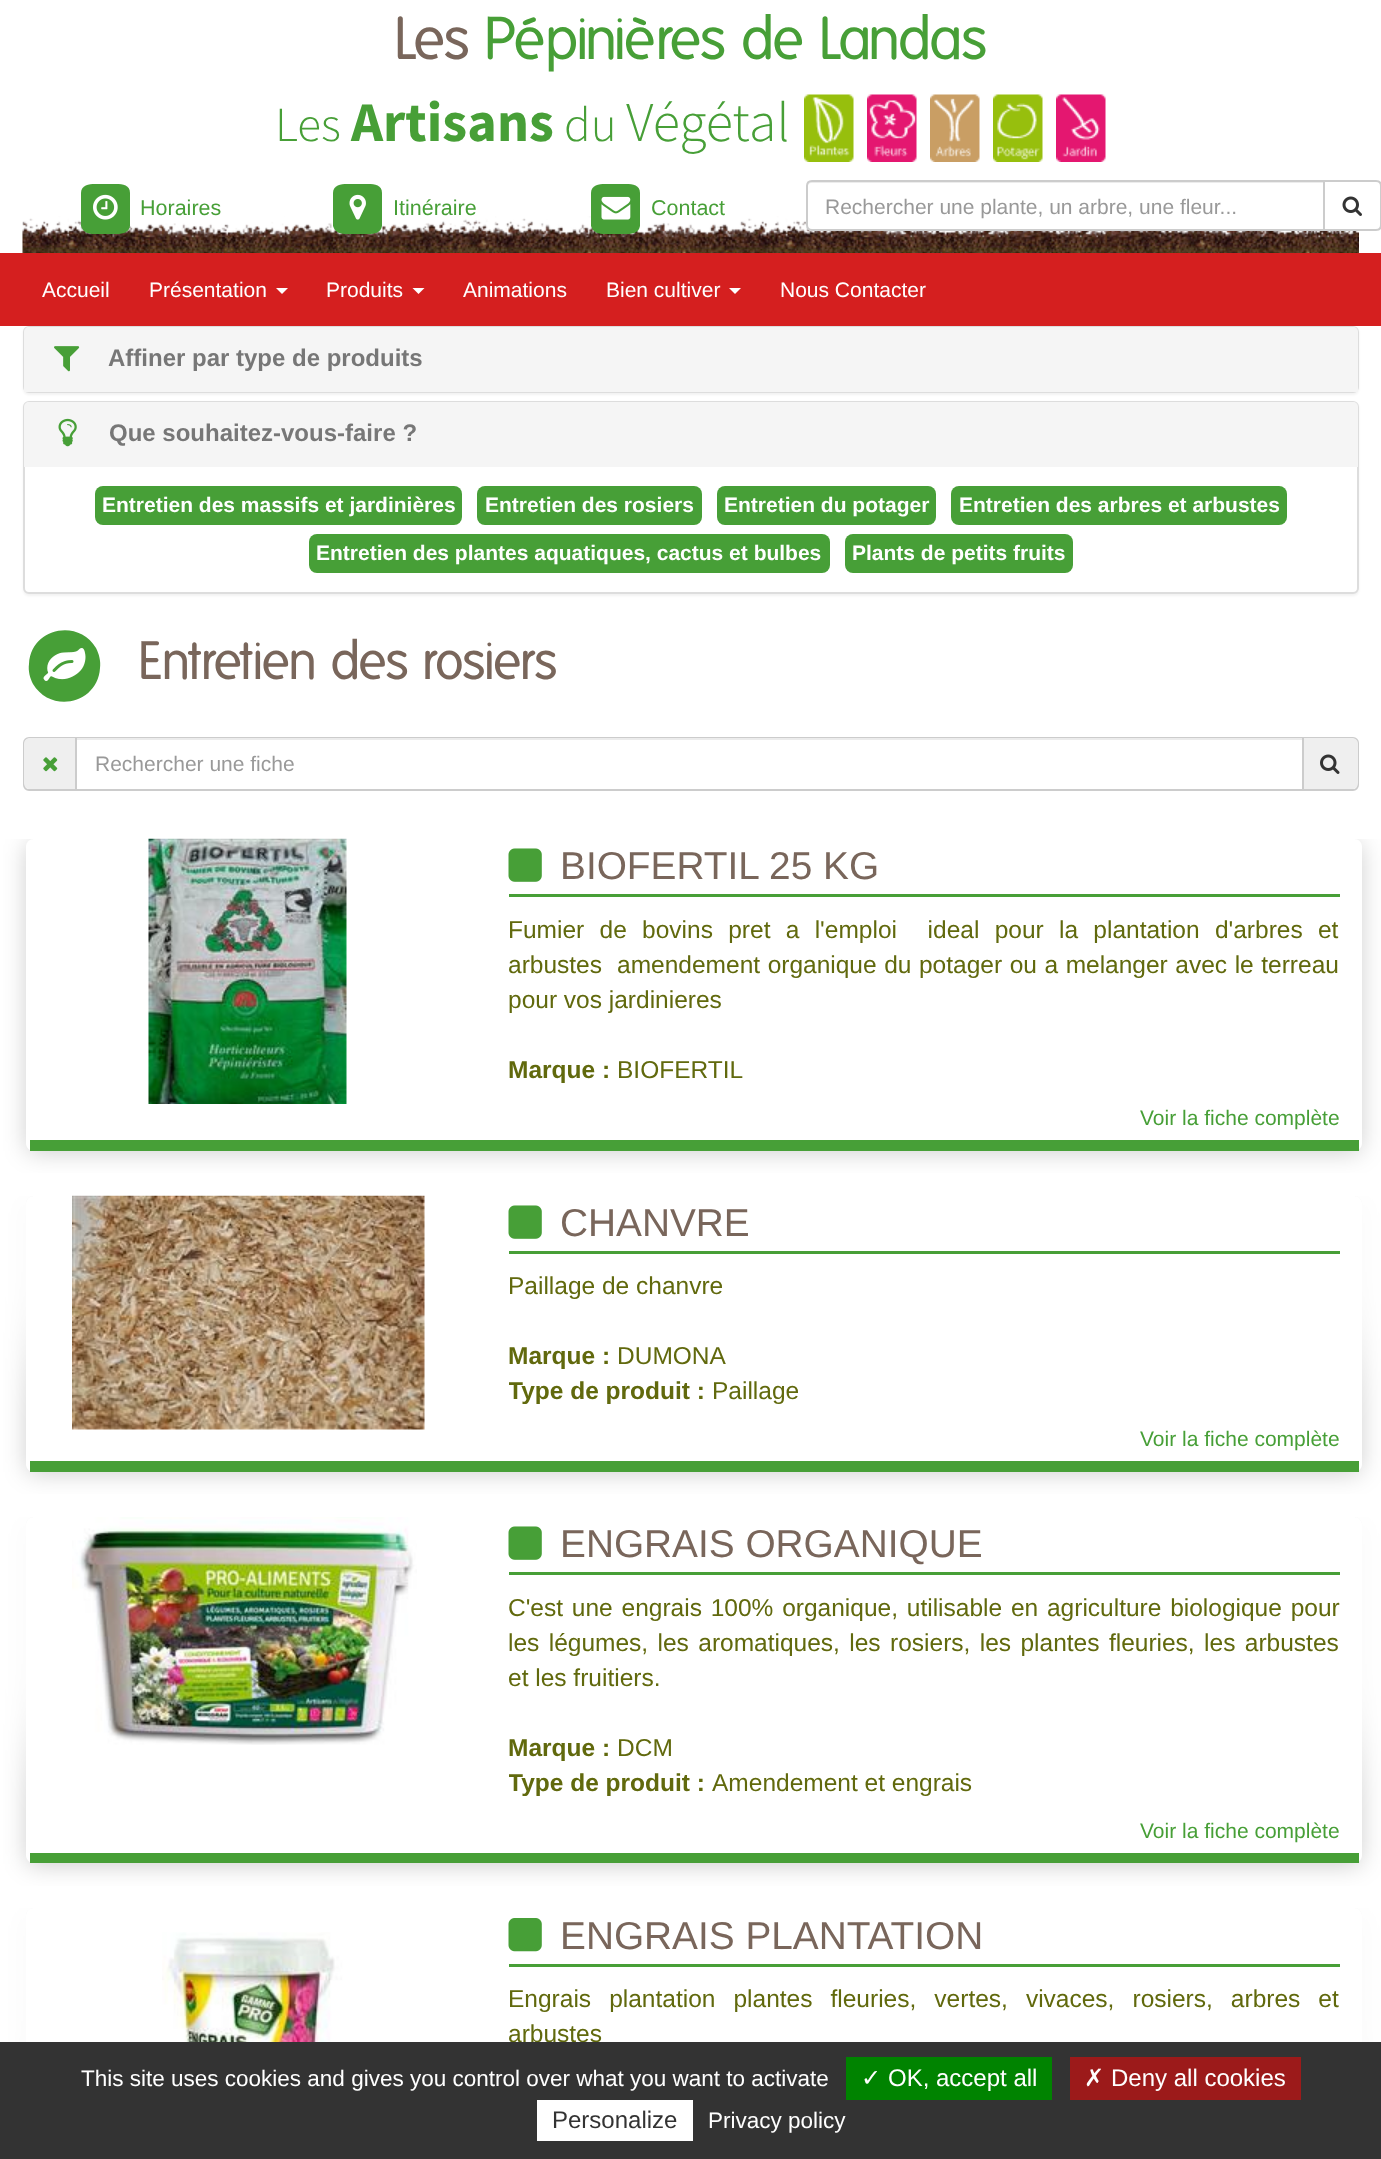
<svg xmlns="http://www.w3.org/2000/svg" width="1381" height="2159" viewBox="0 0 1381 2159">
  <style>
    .t1 { font: 58.75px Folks; fill: #79665b; }
    .t2 { font: 58.75px Folks; fill: #479f37; }
    .t3 { font: 300 49px Source Sans Pro; fill: #479f37; }
    .t4 { font: bold 56px Source Sans Pro; fill: #479f37; }
    .t5 { font: 300 56px Source Sans Pro; fill: #479f37; }
    .t6 { font: 21.5px Liberation Sans; fill: #479f37; }
    .t7 { font: 21px Liberation Sans; fill: #999; }
    .t8 { font: 21px Liberation Sans; fill: #fff; }
    .t9 { font: bold 24px Liberation Sans; fill: #777; }
    .t10 { font: bold 21px Liberation Sans; fill: #fff; }
    .t11 { font: 52.5px Folks; fill: #79665b; }
    .t12 { font: 38.8px Liberation Sans; fill: #79665b; }
    .t13 { font: 24.5px Liberation Sans; fill: #61690d; }
    .t14 { font: bold 24.5px Liberation Sans; fill: #61690d; }
    .t15 { font: 21px Liberation Sans; fill: #479f37; }
    .t16 { font: 22.5px Liberation Sans; fill: #fff; }
    .t17 { font: 24px DejaVu Sans; fill: #fff; }
    .t18 { font: 24px Liberation Sans; fill: #fff; }
    .t19 { font: 24px Liberation Sans; fill: #333; }
  </style>
  <defs>
    <clipPath id="clip1"><rect x="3" y="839" width="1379" height="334"/></clipPath>
    <clipPath id="clip2"><path d="M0 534H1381V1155H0ZM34 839H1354C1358.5 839 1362 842.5 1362 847V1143C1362 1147.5 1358.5 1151 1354 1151H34C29.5 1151 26 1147.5 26 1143V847C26 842.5 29.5 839 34 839Z" clip-rule="evenodd"/></clipPath>
    <clipPath id="clip3"><path d="M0 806H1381V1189H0ZM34 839H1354C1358.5 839 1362 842.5 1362 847V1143C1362 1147.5 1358.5 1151 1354 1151H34C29.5 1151 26 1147.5 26 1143V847C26 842.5 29.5 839 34 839Z" clip-rule="evenodd"/></clipPath>
    <clipPath id="clip4"><rect x="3" y="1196" width="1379" height="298"/></clipPath>
    <clipPath id="clip5"><path d="M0 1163H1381V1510H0ZM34 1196H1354C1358.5 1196 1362 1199.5 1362 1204V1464C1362 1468.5 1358.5 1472 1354 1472H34C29.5 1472 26 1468.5 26 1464V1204C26 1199.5 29.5 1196 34 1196Z" clip-rule="evenodd"/></clipPath>
    <clipPath id="clip6"><path d="M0 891H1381V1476H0ZM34 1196H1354C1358.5 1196 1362 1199.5 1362 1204V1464C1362 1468.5 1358.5 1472 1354 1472H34C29.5 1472 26 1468.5 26 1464V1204C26 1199.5 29.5 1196 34 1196Z" clip-rule="evenodd"/></clipPath>
    <clipPath id="clip7"><rect x="509" y="1269" width="831" height="140"/></clipPath>
    <clipPath id="clip8"><rect x="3" y="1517" width="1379" height="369"/></clipPath>
    <clipPath id="clip9"><path d="M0 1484H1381V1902H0ZM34 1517H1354C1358.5 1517 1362 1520.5 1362 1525V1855C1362 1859.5 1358.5 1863 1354 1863H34C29.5 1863 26 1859.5 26 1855V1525C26 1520.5 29.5 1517 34 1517Z" clip-rule="evenodd"/></clipPath>
    <clipPath id="clip10"><path d="M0 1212H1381V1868H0ZM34 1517H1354C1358.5 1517 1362 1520.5 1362 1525V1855C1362 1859.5 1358.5 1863 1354 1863H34C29.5 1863 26 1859.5 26 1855V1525C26 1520.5 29.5 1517 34 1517Z" clip-rule="evenodd"/></clipPath>
    <clipPath id="clip11"><rect x="509" y="1590" width="831" height="210"/></clipPath>
    <clipPath id="clip12"><rect x="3" y="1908" width="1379" height="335"/></clipPath>
    <clipPath id="clip13"><path d="M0 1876H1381V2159H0ZM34 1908H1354C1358.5 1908 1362 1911.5 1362 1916V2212C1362 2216.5 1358.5 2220 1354 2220H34C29.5 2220 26 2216.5 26 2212V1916C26 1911.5 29.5 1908 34 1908Z" clip-rule="evenodd"/></clipPath>
    <clipPath id="clip14"><path d="M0 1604H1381V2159H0ZM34 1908H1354C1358.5 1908 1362 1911.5 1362 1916V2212C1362 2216.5 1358.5 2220 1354 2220H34C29.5 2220 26 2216.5 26 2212V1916C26 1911.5 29.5 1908 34 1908Z" clip-rule="evenodd"/></clipPath>
  </defs>
  <rect width="100%" height="100%" fill="#fff"/>
  <image x="22" y="216" width="1337" height="37" href="images/1.png"/>
  <text x="394" y="59" class="t1">Les</text>
  <text x="484" y="59" class="t2">Pépinières de Landas</text>
  <text x="275" y="141" class="t3">Les</text>
  <text x="351" y="141" class="t4">Artisans</text>
  <text x="564" y="141" class="t3">du</text>
  <text x="626" y="141" class="t5">Végétal</text>
  <image x="804" y="94" width="50" height="68" href="images/2.png"/>
  <image x="867" y="94" width="50" height="68" href="images/3.png"/>
  <image x="930" y="94" width="50" height="68" href="images/4.png"/>
  <image x="993" y="94" width="50" height="68" href="images/5.png"/>
  <image x="1056" y="94" width="50" height="68" href="images/6.png"/>
  <path d="M130 193V226C129 233 122 234 116 234H95C89 234 83 233 81 226V193C81 185 89 184 95 184H116C123 184 130 185 130 193Z" fill="#479f37"/>
  <image x="93" y="194" width="25" height="26" href="images/7.png"/>
  <text x="140" y="215" class="t6">Horaires</text>
  <path d="M382 193V226C381 233 374 234 368 234H347C341 234 335 233 333 226V193C333 185 341 184 347 184H368C375 184 382 185 382 193Z" fill="#479f37"/>
  <image x="349" y="194" width="17" height="26" href="images/8.png"/>
  <text x="393" y="215" class="t6">Itinéraire</text>
  <path d="M640 193V226C639 233 632 234 626 234H605C599 234 593 233 591 226V193C591 185 599 184 605 184H626C633 184 640 185 640 193Z" fill="#479f37"/>
  <image x="601" y="196" width="30" height="24" href="images/9.png"/>
  <text x="651" y="215" class="t6">Contact</text>
  <path d="M812 180H1325V231H812C808.5 231 806 228.5 806 225V186C806 182.5 808.5 180 812 180Z" fill="#fff"/>
  <path d="M812 183H1323V182H812C809 182 807 184 807 187V188C807 185 809 183 812 183Z" fill="#ececec"/>
  <path d="M812 181H1324V230H812C809 230 807 228 807 225V186C807 183 809 181 812 181Z" fill="none" stroke="#ccc" stroke-width="2"/>
  <text x="825" y="214" class="t7">Rechercher une plante, un arbre, une fleur...</text>
  <path d="M1324 181H1376C1379 181 1381 183 1381 186V225C1381 228 1379 230 1376 230H1324Z" fill="#fff" stroke="#ccc" stroke-width="2"/>
  <image x="1342" y="196" width="20" height="20" href="images/10.png"/>
  <rect x="23" y="327" width="1336" height="68" rx="6" fill="#0000000d" filter="blur(1px)"/>
  <rect x="0" y="253" width="1381" height="73" fill="#d51f1f"/>
  <text x="42" y="297" class="t8">Accueil</text>
  <text x="149" y="297" class="t8">Présentation</text>
  <path d="M276 288H288L282 294Z" fill="#fff"/>
  <text x="326" y="297" class="t8">Produits</text>
  <path d="M412.5 288H424.5L418.5 294Z" fill="#fff"/>
  <text x="463" y="297" class="t8">Animations</text>
  <text x="606" y="297" class="t8">Bien cultiver</text>
  <path d="M729 288H741L735 294Z" fill="#fff"/>
  <text x="780" y="297" class="t8">Nous Contacter</text>
  <rect x="24" y="327" width="1334" height="65" rx="5" fill="none" stroke="#ddd" stroke-width="2"/>
  <path d="M29 327H1353C1356 327 1358 329 1358 332V392H24V332C24 329 26 327 29 327Z" fill="#f5f5f5"/>
  <image x="54" y="346" width="26" height="26" href="images/11.png"/>
  <text x="108" y="366" class="t9">Affiner par type de produits</text>
  <rect x="23" y="402" width="1336" height="194" rx="6" fill="#0000000d" filter="blur(1px)"/>
  <rect x="24" y="402" width="1334" height="191" rx="5" fill="#fff" stroke="#ddd" stroke-width="2"/>
  <path d="M29 402H1353C1356 402 1358 404 1358 407V467H24V407C24 404 26 402 29 402Z" fill="#f5f5f5"/>
  <image x="58" y="418" width="19" height="29" href="images/12.png"/>
  <text x="109" y="441" class="t9">Que souhaitez-vous-faire ?</text>
  <rect x="95" y="486" width="367" height="39" rx="8" fill="#479f37"/>
  <text x="102" y="512" class="t10">Entretien des massifs et jardinières</text>
  <rect x="477" y="486" width="225" height="39" rx="8" fill="#479f37"/>
  <text x="485" y="512" class="t10">Entretien des rosiers</text>
  <rect x="717" y="486" width="219" height="39" rx="8" fill="#479f37"/>
  <text x="724" y="512" class="t10">Entretien du potager</text>
  <rect x="951" y="486" width="336" height="39" rx="8" fill="#479f37"/>
  <text x="959" y="512" class="t10">Entretien des arbres et arbustes</text>
  <rect x="309" y="534" width="521" height="39" rx="8" fill="#479f37"/>
  <text x="316" y="560" class="t10">Entretien des plantes aquatiques, cactus et bulbes</text>
  <rect x="845" y="534" width="228" height="39" rx="8" fill="#479f37"/>
  <text x="852" y="560" class="t10">Plants de petits fruits</text>
  <path d="M96 648C99 654 101 661 100 668C98 704 51 714 33 684C30 678 28 671 29 664C31 628 78 618 96 648Z" fill="#479f37"/>
  <image x="43" y="648" width="43" height="33" href="images/13.png"/>
  <text x="138" y="679" class="t11">Entretien des rosiers</text>
  <rect x="24" y="738" width="1334" height="52" rx="5" fill="none" stroke="#ccc" stroke-width="2"/>
  <path d="M30 738H75V789H30C26.5 789 24 786.5 24 783V744C24 740.5 26.5 738 30 738Z" fill="#efefef"/>
  <image x="43" y="757" width="15" height="15" href="images/14.png"/>
  <path d="M1304 738H1352C1355.5 738 1358 740.5 1358 744V783C1358 786.5 1355.5 789 1352 789H1304Z" fill="#efefef"/>
  <g clip-path="url(#clip1)">
    <g clip-path="url(#clip2)">
      <rect x="-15" y="648" width="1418" height="393" rx="48" fill="#fff" filter="blur(37.5px)"/>
    </g>
  </g>
  <rect x="77" y="738" width="1225" height="2" fill="#ececec"/>
  <rect x="1302" y="738" width="2" height="51" fill="#ccc"/>
  <rect x="75" y="738" width="2" height="51" fill="#ccc"/>
  <text x="95" y="771" class="t7">Rechercher une fiche</text>
  <image x="1320" y="754" width="20" height="20" href="images/15.png"/>
  <g clip-path="url(#clip1)">
    <g clip-path="url(#clip3)">
      <rect x="27" y="843" width="1334" height="309" rx="6" fill="#00000033" filter="blur(12px)"/>
    </g>
  </g>
  <rect x="30" y="1140" width="1329" height="11" fill="#479f37"/>
  <image x="148" y="838" width="199" height="266" href="images/16.png"/>
  <rect x="509" y="894" width="831" height="3" fill="#479f37"/>
  <image x="508" y="848" width="34" height="34" href="images/17.png"/>
  <text x="560" y="879" class="t12">BIOFERTIL 25 KG</text>
  <text x="508" y="938" word-spacing="8.5" class="t13" xml:space="preserve">Fumier de bovins pret a l'emploi  ideal pour la plantation d'arbres et</text>
  <text x="508" y="973" word-spacing="0.75" class="t13" xml:space="preserve">arbustes  amendement organique du potager ou a melanger avec le terreau</text>
  <text x="508" y="1008" class="t13">pour vos jardinieres</text>
  <text x="508" y="1078" class="t14">Marque :</text>
  <text x="617" y="1078" class="t13">BIOFERTIL</text>
  <text x="1140" y="1125" class="t15">Voir la fiche complète</text>
  <g clip-path="url(#clip4)">
    <g clip-path="url(#clip5)">
      <rect x="27" y="1200" width="1334" height="273" rx="6" fill="#00000033" filter="blur(12px)"/>
    </g>
  </g>
  <g clip-path="url(#clip4)">
    <g clip-path="url(#clip6)">
      <rect x="-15" y="1005" width="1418" height="357" rx="48" fill="#fff" filter="blur(37.5px)"/>
    </g>
  </g>
  <rect x="30" y="1461" width="1329" height="11" fill="#479f37"/>
  <image x="72" y="1195" width="353" height="235" href="images/18.png"/>
  <rect x="509" y="1251" width="831" height="3" fill="#479f37"/>
  <image x="508" y="1205" width="34" height="34" href="images/17.png"/>
  <text x="560" y="1236" class="t12">CHANVRE</text>
  <text x="508" y="1294" class="t13">Paillage de chanvre</text>
  <text x="508" y="1364" class="t14">Marque :</text>
  <text x="617" y="1364" class="t13">DUMONA</text>
  <g clip-path="url(#clip7)">
    <text x="508" y="1399" class="t14">Type de produit :</text>
  </g>
  <text x="712" y="1399" class="t13">Paillage</text>
  <text x="1140" y="1446" class="t15">Voir la fiche complète</text>
  <g clip-path="url(#clip8)">
    <g clip-path="url(#clip9)">
      <rect x="27" y="1521" width="1334" height="344" rx="6" fill="#00000033" filter="blur(12px)"/>
    </g>
  </g>
  <g clip-path="url(#clip8)">
    <g clip-path="url(#clip10)">
      <rect x="-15" y="1326" width="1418" height="428" rx="48" fill="#fff" filter="blur(37.5px)"/>
    </g>
  </g>
  <rect x="30" y="1853" width="1329" height="10" fill="#479f37"/>
  <image x="72" y="1517" width="345" height="228" href="images/19.png"/>
  <rect x="509" y="1572" width="831" height="3" fill="#479f37"/>
  <image x="508" y="1526" width="34" height="34" href="images/17.png"/>
  <text x="560" y="1557" class="t12">ENGRAIS ORGANIQUE</text>
  <text x="508" y="1616" word-spacing="2" class="t13">C'est une engrais 100% organique, utilisable en agriculture biologique pour</text>
  <text x="508" y="1651" word-spacing="2.6" class="t13">les légumes, les aromatiques, les rosiers, les plantes fleuries, les arbustes</text>
  <text x="508" y="1686" class="t13">et les fruitiers.</text>
  <text x="508" y="1756" class="t14">Marque :</text>
  <text x="617" y="1756" class="t13">DCM</text>
  <g clip-path="url(#clip11)">
    <text x="508" y="1791" class="t14">Type de produit :</text>
  </g>
  <text x="712" y="1791" class="t13">Amendement et engrais</text>
  <text x="1140" y="1838" class="t15">Voir la fiche complète</text>
  <g clip-path="url(#clip12)">
    <g clip-path="url(#clip13)">
      <rect x="27" y="1913" width="1334" height="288" rx="6" fill="#00000033" filter="blur(12px)"/>
    </g>
  </g>
  <g clip-path="url(#clip12)">
    <g clip-path="url(#clip14)">
      <rect x="-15" y="1718" width="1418" height="393" rx="48" fill="#fff" filter="blur(37.5px)"/>
    </g>
  </g>
  <image x="162" y="1932" width="188" height="110" href="images/20.png"/>
  <rect x="509" y="1964" width="831" height="3" fill="#479f37"/>
  <image x="508" y="1918" width="34" height="34" href="images/21.png"/>
  <text x="560" y="1949" class="t12">ENGRAIS PLANTATION</text>
  <text x="508" y="2007" word-spacing="11.25" class="t13">Engrais plantation plantes fleuries, vertes, vivaces, rosiers, arbres et</text>
  <text x="508" y="2042" class="t13">arbustes</text>
  <rect x="0" y="2042" width="1381" height="117" fill="#333"/>
  <text x="81" y="2086" class="t16">This site uses cookies and gives you control over what you want to activate</text>
  <rect x="846" y="2057" width="206" height="43" fill="#008300"/>
  <text x="861" y="2086" class="t17">✓</text>
  <text x="888" y="2086" class="t18">OK, accept all</text>
  <rect x="1070" y="2057" width="231" height="43" fill="#9c1a1a"/>
  <text x="1084" y="2086" class="t17">✗</text>
  <text x="1111" y="2086" class="t18">Deny all cookies</text>
  <rect x="537" y="2100" width="156" height="41" fill="#fff"/>
  <text x="552" y="2128" class="t19">Personalize</text>
  <text x="708" y="2128" class="t16">Privacy policy</text>
</svg>
